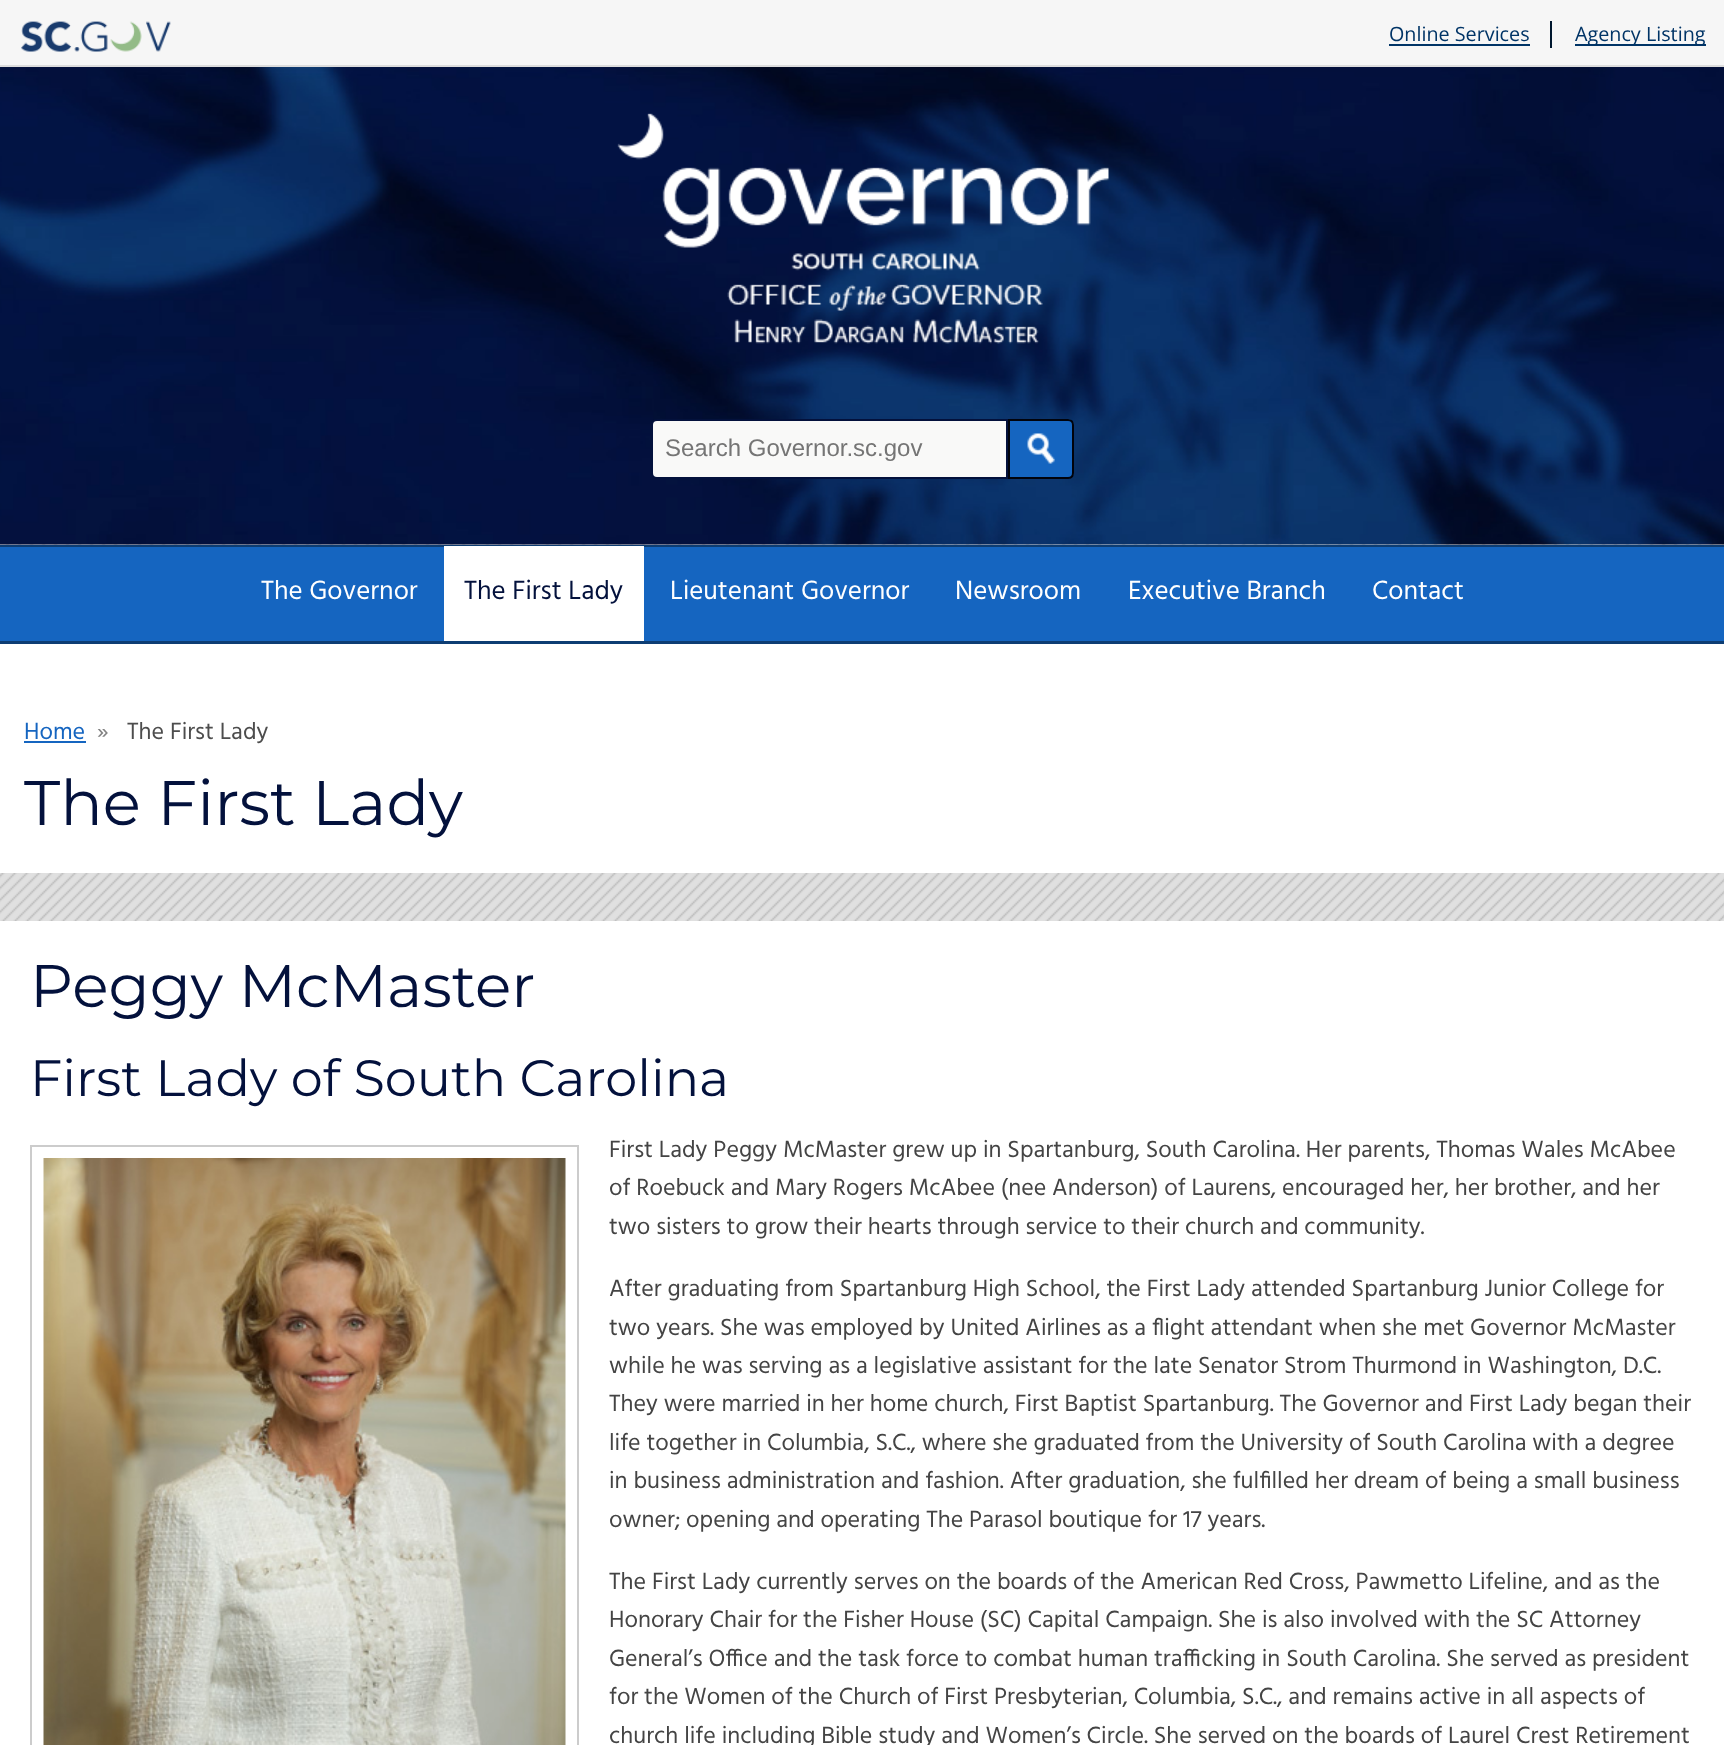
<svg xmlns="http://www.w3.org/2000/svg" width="1724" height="1745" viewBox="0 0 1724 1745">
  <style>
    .t1 { font: 19.75px Open Sans; fill: #003466; }
    .t2 { font: 24px Liberation Sans; fill: #757575; }
    .t3 { font: 27px Hind; fill: #fff; }
    .t4 { font: 27px Hind; fill: #03113c; }
    .t5 { font: 24px Hind; fill: #1565c0; }
    .t6 { font: 24px Hind; fill: #838383; }
    .t7 { font: 24px Hind; fill: #4d4d4d; }
    .t8 { font: 63px Montserrat; fill: #03113c; }
    .t9 { font: 60px Montserrat; fill: #03113c; }
    .t10 { font: 51px Montserrat; fill: #03113c; }
    .t11 { font: 24px Hind; fill: #444; }
  </style>
  <rect width="100%" height="100%" fill="#fff"/>
  <image x="0" y="544" width="1724" height="377" href="images/1.png"/>
  <rect x="0" y="0" width="1724" height="65" fill="#f6f6f6"/>
  <rect x="0" y="65" width="1724" height="2" fill="#ddd"/>
  <image x="21" y="21" width="150" height="31" href="images/2.png"/>
  <text x="1389" y="41" class="t1">Online Services</text>
  <rect x="1550" y="21" width="2" height="27" fill="#00172e"/>
  <rect x="1389" y="44" width="141" height="2" fill="#003466"/>
  <rect x="1575" y="44" width="131" height="2" fill="#003466"/>
  <text x="1575" y="41" class="t1">Agency Listing</text>
  <image x="0" y="67" width="1724" height="478" href="images/3.png"/>
  <image x="617" y="113" width="492" height="231" href="images/4.png"/>
  <path d="M657 420H1007V478H657C654 478 652 476 652 473V425C652 422 654 420 657 420Z" fill="#f9f9f8" stroke="#03113c" stroke-width="2"/>
  <text x="665" y="456" class="t2">Search Governor.sc.gov</text>
  <path d="M1008 419H1068C1071.5 419 1074 421.5 1074 425V473C1074 476.5 1071.5 479 1068 479H1008Z" fill="#1565c0"/>
  <image x="1027" y="433" width="28" height="31" href="images/5.png"/>
  <path d="M1009 420H1068C1071 420 1073 422 1073 425V473C1073 476 1071 478 1068 478H1009Z" fill="none" stroke="#01030b" stroke-width="2"/>
  <rect x="0" y="547" width="1724" height="94" fill="#1565c0"/>
  <rect x="0" y="545" width="1724" height="2" fill="#0d3d73"/>
  <rect x="0" y="641" width="1724" height="3" fill="#0d3d73"/>
  <text x="261" y="599" class="t3">The Governor</text>
  <rect x="444" y="546" width="200" height="95" fill="#fff"/>
  <text x="464" y="599" class="t4">The First Lady</text>
  <text x="670" y="599" class="t3">Lieutenant Governor</text>
  <text x="955" y="599" class="t3">Newsroom</text>
  <text x="1128" y="599" class="t3">Executive Branch</text>
  <text x="1372" y="599" class="t3">Contact</text>
  <rect x="0" y="644" width="1724" height="229" fill="#fff"/>
  <text x="24" y="739" class="t5">Home</text>
  <rect x="24" y="741" width="62" height="2" fill="#1565c0"/>
  <text x="97" y="739" class="t6">»</text>
  <text x="127" y="739" class="t7">The First Lady</text>
  <text x="24" y="825" class="t8">The First Lady</text>
  <text x="30" y="1007" class="t9">Peggy McMaster</text>
  <text x="30" y="1096" class="t10">First Lady of South Carolina</text>
  <rect x="31" y="1146" width="547" height="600" fill="none" stroke="#ccc" stroke-width="2"/>
  <image x="43" y="1158" width="523" height="587" href="images/6.png"/>
  <text x="609" y="1157" class="t11">First Lady Peggy McMaster grew up in Spartanburg, South Carolina. Her parents, Thomas Wales McAbee</text>
  <text x="609" y="1195" class="t11">of Roebuck and Mary Rogers McAbee (nee Anderson) of Laurens, encouraged her, her brother, and her</text>
  <text x="609" y="1234" class="t11">two sisters to grow their hearts through service to their church and community.</text>
  <text x="609" y="1296" class="t11">After graduating from Spartanburg High School, the First Lady attended Spartanburg Junior College for</text>
  <text x="609" y="1335" class="t11">two years. She was employed by United Airlines as a flight attendant when she met Governor McMaster</text>
  <text x="609" y="1373" class="t11">while he was serving as a legislative assistant for the late Senator Strom Thurmond in Washington, D.C.</text>
  <text x="609" y="1411" class="t11">They were married in her home church, First Baptist Spartanburg. The Governor and First Lady began their</text>
  <text x="609" y="1450" class="t11">life together in Columbia, S.C., where she graduated from the University of South Carolina with a degree</text>
  <text x="609" y="1488" class="t11">in business administration and fashion. After graduation, she fulfilled her dream of being a small business</text>
  <text x="609" y="1527" class="t11">owner; opening and operating The Parasol boutique for 17 years.</text>
  <text x="609" y="1589" class="t11">The First Lady currently serves on the boards of the American Red Cross, Pawmetto Lifeline, and as the</text>
  <text x="609" y="1627" class="t11">Honorary Chair for the Fisher House (SC) Capital Campaign. She is also involved with the SC Attorney</text>
  <text x="609" y="1666" class="t11">General’s Office and the task force to combat human trafficking in South Carolina. She served as president</text>
  <text x="609" y="1704" class="t11">for the Women of the Church of First Presbyterian, Columbia, S.C., and remains active in all aspects of</text>
  <text x="609" y="1743" class="t11">church life including Bible study and Women’s Circle. She served on the boards of Laurel Crest Retirement</text>
</svg>
